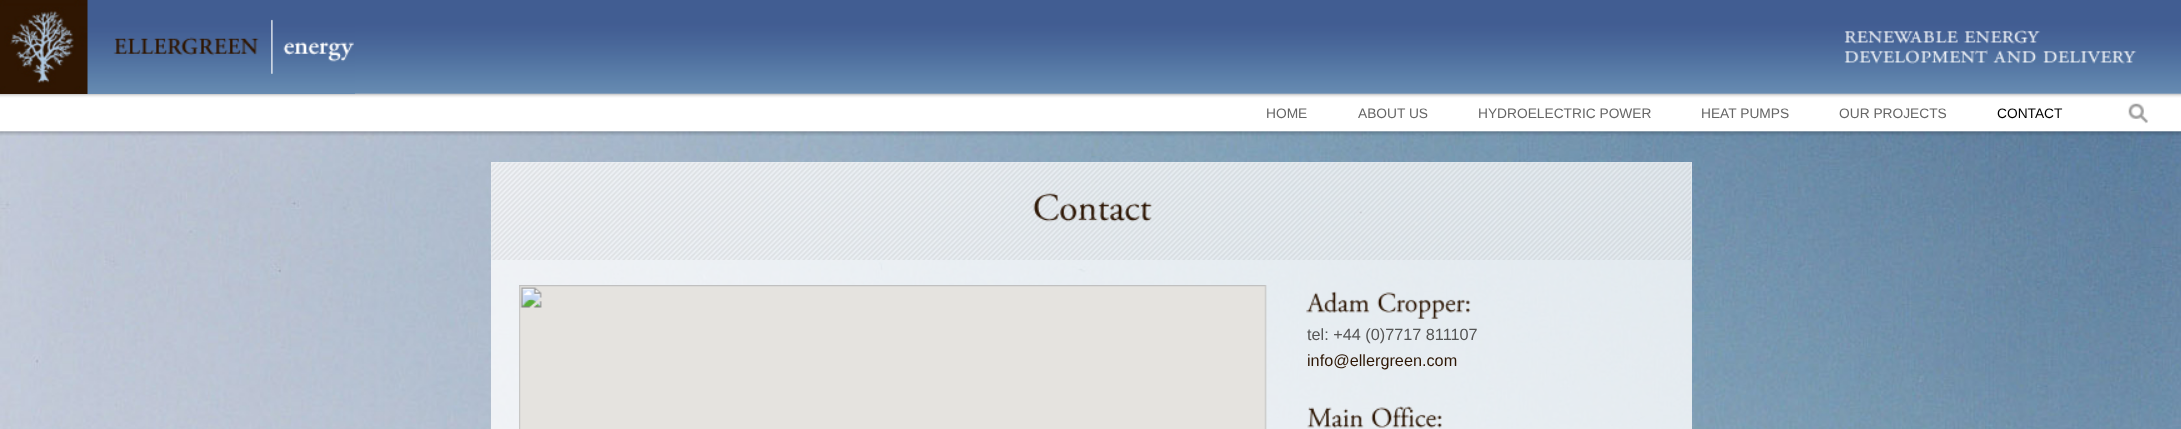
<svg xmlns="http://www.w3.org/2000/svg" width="2181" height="429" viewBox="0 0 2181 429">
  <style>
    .t1 { font: 13.75px Liberation Sans; fill: #666; }
    .t2 { font: 13.75px Liberation Sans; fill: #000; }
    .t3 { font: 16.25px Liberation Sans; fill: #555; }
    .t4 { font: 16.25px Liberation Sans; fill: #2d1604; }
  </style>
  <rect width="100%" height="100%" fill="#fff"/>
  <image x="0" y="131" width="2181" height="298" href="images/5.png"/>
  <image x="0" y="0" width="2181" height="136" href="images/1.png"/>
  <image x="1844" y="30" width="293" height="34" href="images/2.png"/>
  <image x="0" y="0" width="355" height="94" href="images/3.png"/>
  <text x="1266" y="118" class="t1">HOME</text>
  <text x="1358" y="118" class="t1">ABOUT US</text>
  <text x="1478" y="118" class="t1">HYDROELECTRIC POWER</text>
  <text x="1701" y="118" class="t1">HEAT PUMPS</text>
  <text x="1839" y="118" class="t1">OUR PROJECTS</text>
  <text x="1997" y="118" class="t2">CONTACT</text>
  <image x="2128" y="103" width="21" height="21" href="images/4.png"/>
  <rect x="491" y="162" width="1201" height="267" fill="#ffffffcc"/>
  <image x="491" y="162" width="1200" height="98" href="images/6.png"/>
  <image x="1033" y="193" width="119" height="29" href="images/7.png"/>
  <image x="519" y="285" width="748" height="144" href="images/8.png"/>
  <image x="1306" y="291" width="64" height="22" href="images/9.png"/>
  <image x="1377" y="292" width="94" height="27" href="images/10.png"/>
  <text x="1307" y="340" class="t3">tel: +44 (0)7717 811107</text>
  <text x="1307" y="366" class="t4">info@ellergreen.com</text>
  <image x="1307" y="407" width="57" height="21" href="images/11.png"/>
  <image x="1371" y="406" width="71" height="22" href="images/12.png"/>
</svg>
